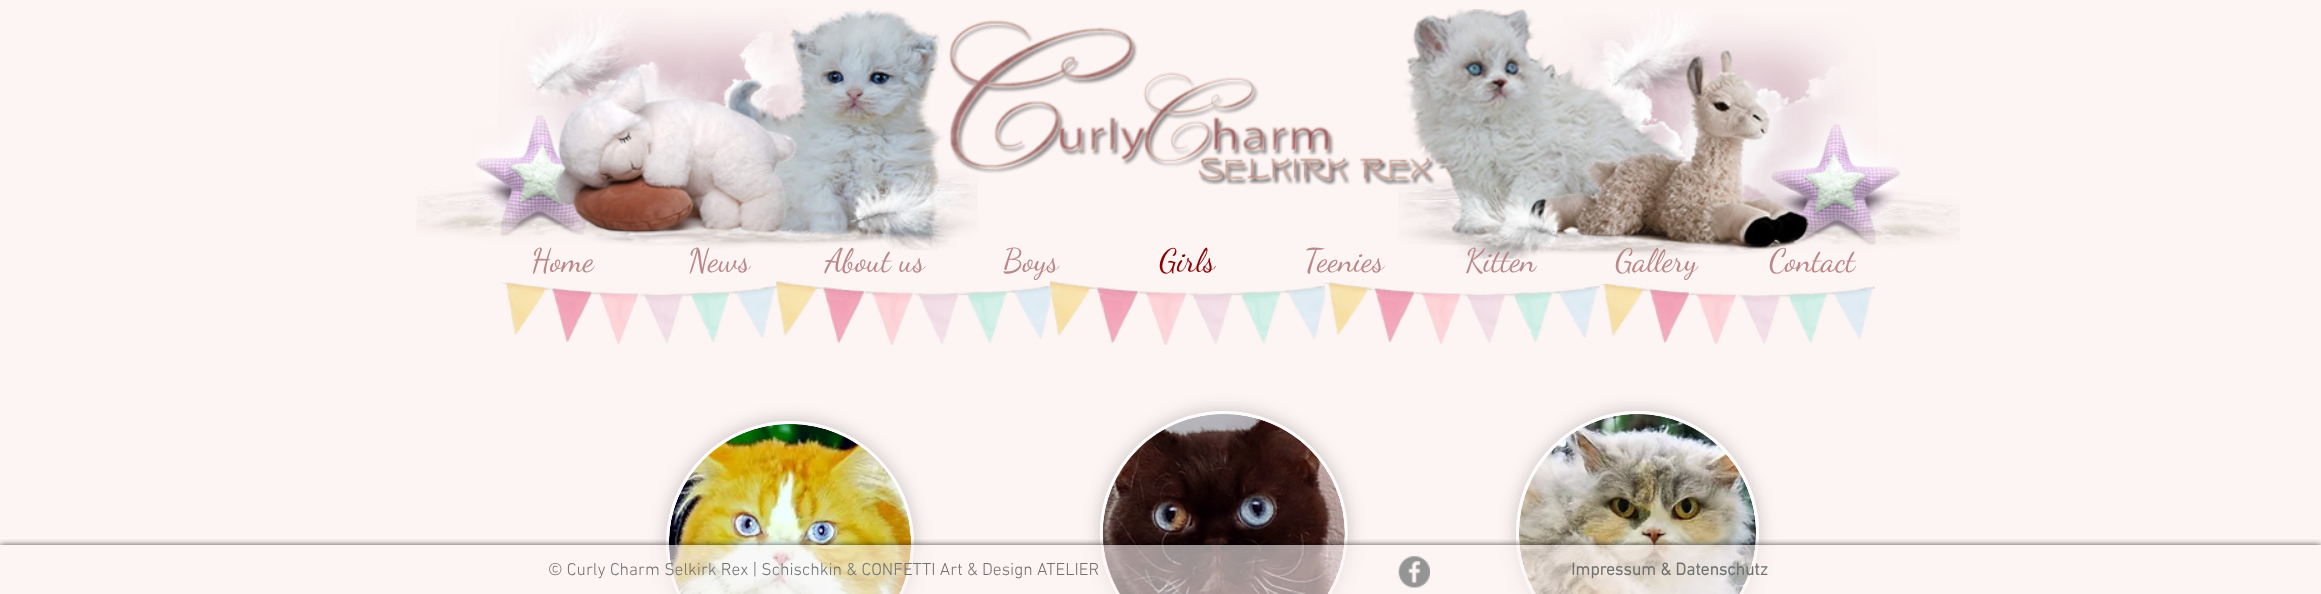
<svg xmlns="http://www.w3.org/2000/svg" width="2321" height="594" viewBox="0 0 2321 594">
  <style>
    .t1 { font: 32.5px Dancing Script; fill: #ba8888; }
    .t2 { font: 32.5px Dancing Script; fill: #8b0000; }
    .t3 { font: 300 17.5px 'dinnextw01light'; fill: #707070; }
    .t4 { font: bold 17.5px 'dinnextw01light'; fill: #707070; }
  </style>
  <defs>
    <clipPath id="clip1"><path d="M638 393H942V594H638ZM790 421C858.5 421 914 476 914 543C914 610.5 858.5 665 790 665C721.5 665 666 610.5 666 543C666 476 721.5 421 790 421Z" clip-rule="evenodd"/></clipPath>
    <clipPath id="clip2"><path d="M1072 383H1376V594H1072ZM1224 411C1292 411 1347.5 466 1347.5 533C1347.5 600.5 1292 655 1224 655C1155.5 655 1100 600.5 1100 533C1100 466 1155.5 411 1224 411Z" clip-rule="evenodd"/></clipPath>
    <clipPath id="clip3"><path d="M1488 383H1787V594H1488ZM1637.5 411C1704.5 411 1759 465.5 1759 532.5V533.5C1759 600.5 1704.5 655 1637.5 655C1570.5 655 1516 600.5 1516 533.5V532.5C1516 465.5 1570.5 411 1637.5 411Z" clip-rule="evenodd"/></clipPath>
    <clipPath id="clip4"><rect x="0" y="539" width="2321" height="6"/></clipPath>
  </defs>
  <rect width="100%" height="100%" fill="#fdf4f4"/>
  <image x="416" y="8" width="562" height="242" href="images/1.png"/>
  <image x="948" y="20" width="487" height="166" href="images/2.png"/>
  <image x="1398" y="9" width="562" height="250" href="images/3.png"/>
  <text x="531" y="271" class="t1">Home</text>
  <text x="688" y="271" class="t1">News</text>
  <text x="825" y="271" class="t1">About us</text>
  <text x="1003" y="271" class="t1">Boys</text>
  <text x="1159" y="271" class="t2">Girls</text>
  <text x="1304" y="271" class="t1">Teenies</text>
  <text x="1465" y="271" class="t1">Kitten</text>
  <text x="1615" y="271" class="t1">Gallery</text>
  <text x="1769" y="271" class="t1">Contact</text>
  <image x="502" y="282" width="276" height="62" href="images/4.png"/>
  <image x="776" y="281" width="275" height="64" href="images/5.png"/>
  <image x="1050" y="281" width="275" height="64" href="images/6.png"/>
  <image x="1325" y="282" width="275" height="62" href="images/7.png"/>
  <image x="1600" y="283" width="275" height="61" href="images/8.png"/>
  <g clip-path="url(#clip1)">
    <rect x="666" y="421" width="248" height="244" rx="122" fill="#00000033" filter="blur(9px)"/>
  </g>
  <ellipse cx="790" cy="543" rx="124" ry="122" fill="#ffffff7d"/>
  <path d="M790 422.5C857.5 422.5 912.5 476.5 912.5 543C912.5 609.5 857.5 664 790 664C722.5 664 667.5 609.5 667.5 543C667.5 476.5 722.5 422.5 790 422.5Z" fill="none" stroke="#ffffff7d" stroke-width="2.5"/>
  <image x="669" y="424" width="242" height="170" href="images/9.png"/>
  <g clip-path="url(#clip2)">
    <rect x="1100" y="411" width="248" height="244" rx="122" fill="#00000033" filter="blur(9px)"/>
  </g>
  <ellipse cx="1224" cy="533" rx="124" ry="122" fill="#ffffff7d"/>
  <path d="M1224 412.5C1291.5 412.5 1346 466.5 1346 533C1346 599.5 1291.5 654 1224 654C1156 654 1101 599.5 1101 533C1101 466.5 1156 412.5 1224 412.5Z" fill="none" stroke="#ffffff7d" stroke-width="2.5"/>
  <image x="1102" y="414" width="243" height="180" href="images/10.png"/>
  <g clip-path="url(#clip3)">
    <rect x="1516" y="411" width="243" height="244" rx="121.5" fill="#00000033" filter="blur(9px)"/>
  </g>
  <rect x="1516" y="411" width="243" height="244" rx="121.5" fill="#ffffff7d"/>
  <rect x="1517.5" y="412.5" width="240" height="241" rx="120" fill="none" stroke="#ffffff7d" stroke-width="3"/>
  <image x="1519" y="414" width="237" height="180" href="images/11.png"/>
  <g clip-path="url(#clip4)">
    <rect x="0" y="545" width="2321" height="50" fill="#000000b3" filter="blur(3px)"/>
  </g>
  <rect x="654" y="545" width="1116" height="49" fill="#fdf4f499"/>
  <text x="548" y="575" class="t3">© Curly Charm Selkirk Rex | Schischkin &amp; CONFETTI Art &amp; Design ATELIER</text>
  <image x="1398" y="556" width="32" height="32" href="images/12.png"/>
  <text x="1571" y="575" class="t4">Impressum &amp; Datenschutz</text>
</svg>
